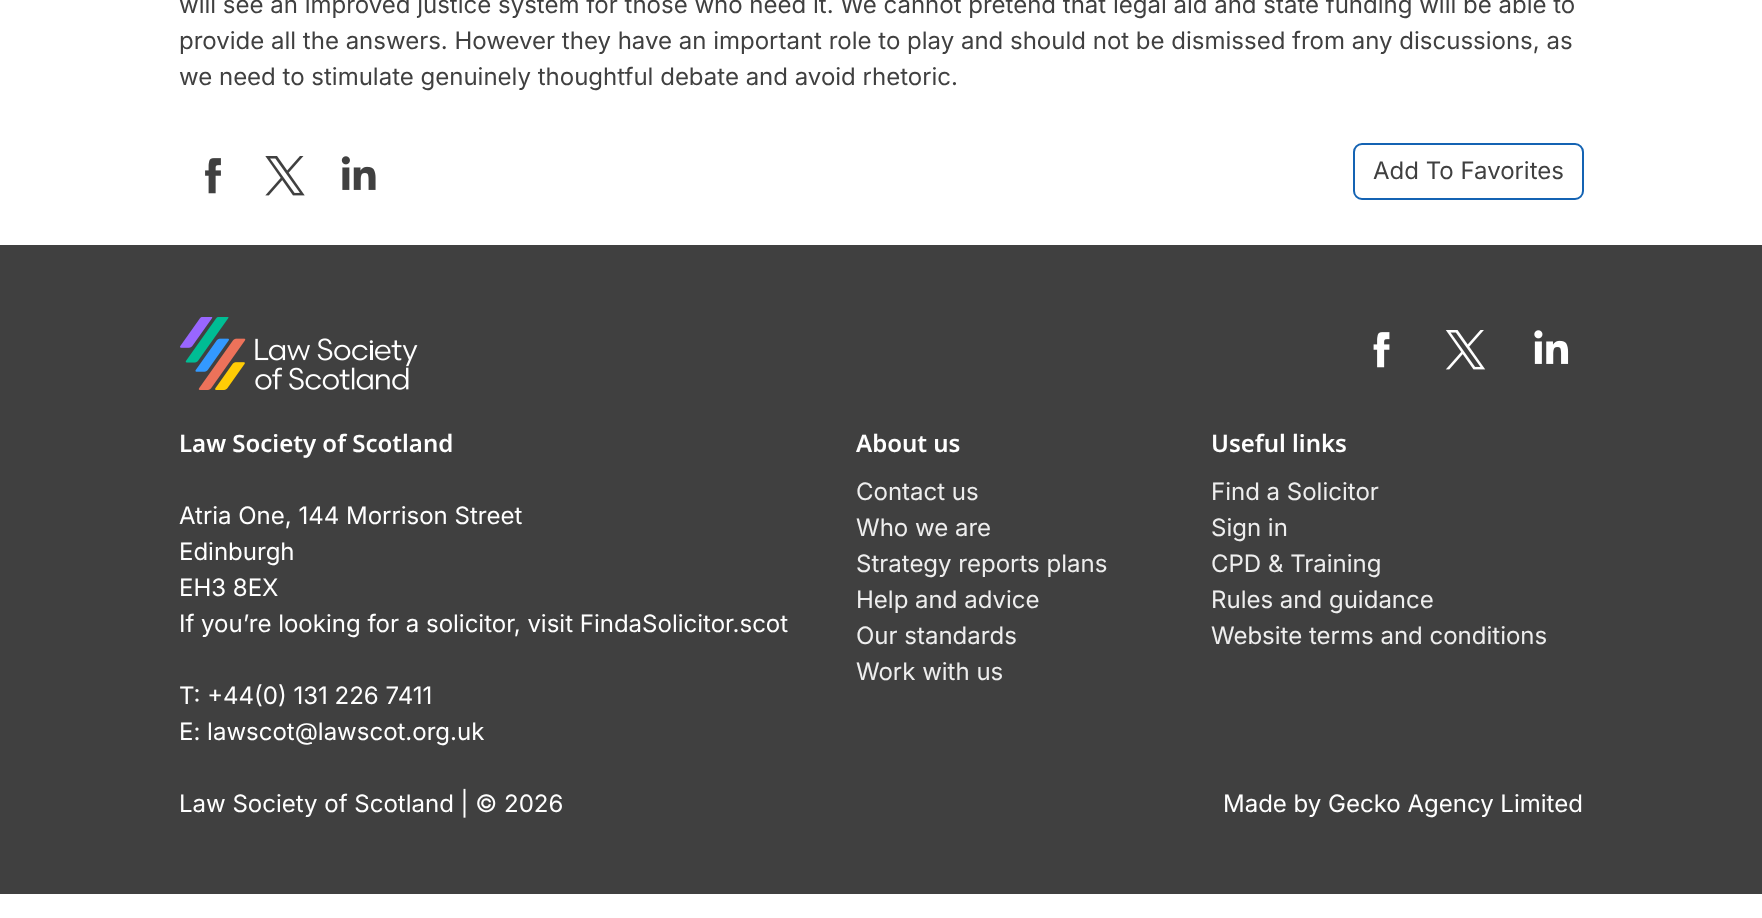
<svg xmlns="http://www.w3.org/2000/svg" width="1762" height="918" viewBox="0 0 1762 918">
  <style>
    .t1 { font: 24px Inter; fill: #404040; }
    .t2 { font: 600 24px Noto Sans; fill: #fff; }
    .t3 { font: 24px Inter; fill: #fff; }
    .t4 { font: 24px Inter; fill: #eee; }
  </style>
  <rect width="100%" height="100%" fill="#fff"/>
  <text x="179" y="13" class="t1">will see an improved justice system for those who need it. We cannot pretend that legal aid and state funding will be able to</text>
  <text x="179" y="49" class="t1">provide all the answers. However they have an important role to play and should not be dismissed from any discussions, as</text>
  <text x="179" y="85" class="t1">we need to stimulate genuinely thoughtful debate and avoid rhetoric.</text>
  <image x="205" y="158" width="16" height="36" href="images/1.png"/>
  <image x="265" y="156" width="40" height="40" href="images/2.png"/>
  <image x="341" y="156" width="35" height="34" href="images/3.png"/>
  <rect x="1354" y="144" width="229" height="55" rx="8" fill="none" stroke="#1463b3" stroke-width="2"/>
  <text x="1373" y="179" class="t1">Add To Favorites</text>
  <rect x="0" y="245" width="1762" height="649" fill="#404040"/>
  <image x="180" y="317" width="238" height="73" href="images/4.png"/>
  <image x="1373" y="332" width="17" height="36" href="images/5.png"/>
  <image x="1445" y="330" width="41" height="40" href="images/6.png"/>
  <image x="1534" y="330" width="35" height="34" href="images/7.png"/>
  <text x="179" y="452" class="t2">Law Society of Scotland</text>
  <text x="179" y="524" class="t3">Atria One, 144 Morrison Street</text>
  <text x="179" y="560" class="t3">Edinburgh</text>
  <text x="179" y="596" class="t3">EH3 8EX</text>
  <text x="179" y="632" class="t3">If you’re looking for a solicitor, visit FindaSolicitor.scot</text>
  <text x="179" y="704" class="t3">T: +44(0) 131 226 7411</text>
  <text x="179" y="740" class="t3">E: lawscot@lawscot.org.uk</text>
  <text x="856" y="452" class="t2">About us</text>
  <text x="856" y="500" class="t4">Contact us</text>
  <text x="856" y="536" class="t4">Who we are</text>
  <text x="856" y="572" class="t4">Strategy reports plans</text>
  <text x="856" y="608" class="t4">Help and advice</text>
  <text x="856" y="644" class="t4">Our standards</text>
  <text x="856" y="680" class="t4">Work with us</text>
  <text x="1211" y="452" class="t2">Useful links</text>
  <text x="1211" y="500" class="t4">Find a Solicitor</text>
  <text x="1211" y="536" class="t4">Sign in</text>
  <text x="1211" y="572" class="t4">CPD &amp; Training</text>
  <text x="1211" y="608" class="t4">Rules and guidance</text>
  <text x="1211" y="644" class="t4">Website terms and conditions</text>
  <text x="179" y="812" class="t3">Law Society of Scotland | © 2026</text>
  <text x="1223" y="812" class="t3">Made by Gecko Agency Limited</text>
</svg>
